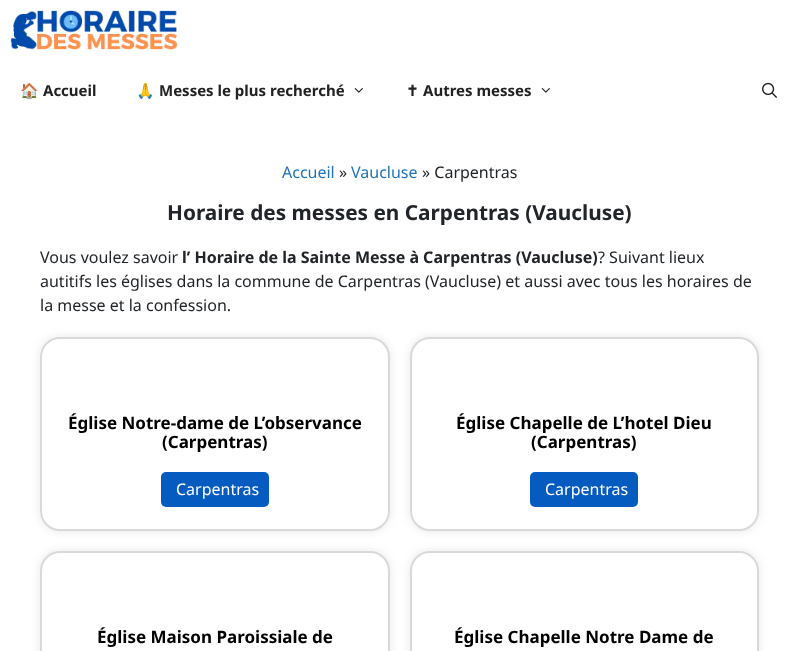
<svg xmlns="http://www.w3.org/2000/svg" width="799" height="651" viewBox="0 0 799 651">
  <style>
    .t1 { font: bold 15px Noto Color Emoji; fill: #222; }
    .t2 { font: bold 15px Noto Sans; fill: #222; }
    .t3 { font: bold 15px DejaVu Sans; fill: #222; }
    .t4 { font: 16px Noto Sans; fill: #1e73be; }
    .t5 { font: 16px Noto Sans; fill: #212529; }
    .t6 { font: bold 20.8px Noto Sans; fill: #212529; }
    .t7 { font: bold 16px Noto Sans; fill: #212529; }
    .t8 { font: bold 17px Noto Sans; fill: #000; }
    .t9 { font: 16px Noto Sans; fill: #fff; }
  </style>
  <defs>
    <clipPath id="clip1"><path d="M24 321H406V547H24ZM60 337H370C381 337 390 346 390 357V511C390 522 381 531 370 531H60C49 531 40 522 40 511V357C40 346 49 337 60 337Z" clip-rule="evenodd"/></clipPath>
    <clipPath id="clip2"><path d="M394 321H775V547H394ZM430 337H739C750 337 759 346 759 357V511C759 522 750 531 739 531H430C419 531 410 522 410 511V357C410 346 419 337 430 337Z" clip-rule="evenodd"/></clipPath>
    <clipPath id="clip3"><path d="M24 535H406V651H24ZM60 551H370C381 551 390 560 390 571V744C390 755 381 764 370 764H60C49 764 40 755 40 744V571C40 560 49 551 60 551Z" clip-rule="evenodd"/></clipPath>
    <clipPath id="clip4"><path d="M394 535H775V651H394ZM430 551H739C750 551 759 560 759 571V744C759 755 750 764 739 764H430C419 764 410 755 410 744V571C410 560 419 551 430 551Z" clip-rule="evenodd"/></clipPath>
  </defs>
  <rect width="100%" height="100%" fill="#fff"/>
  <image x="10" y="10" width="168" height="40" href="images/1.png"/>
  <text x="20" y="96" class="t1">🏠</text>
  <text x="43" y="96" class="t2">Accueil</text>
  <text x="136" y="96" class="t1">🙏</text>
  <text x="159" y="96" class="t2">Messes le plus recherché</text>
  <image x="354" y="88" width="9" height="5" href="images/2.png"/>
  <text x="406" y="96" class="t3">✝</text>
  <text x="423" y="96" class="t2">Autres messes</text>
  <image x="541" y="88" width="9" height="5" href="images/2.png"/>
  <image x="762" y="82" width="15" height="16" href="images/3.png"/>
  <text x="282" y="178" class="t4">Accueil</text>
  <text x="339" y="178" class="t5">»</text>
  <text x="351" y="178" class="t4">Vaucluse</text>
  <text x="422" y="178" class="t5">» Carpentras</text>
  <text x="167" y="220" class="t6">Horaire des messes en Carpentras (Vaucluse)</text>
  <text x="40" y="263" class="t5">Vous voulez savoir</text>
  <text x="182" y="263" class="t7">l’ Horaire de la Sainte Messe à Carpentras (Vaucluse)</text>
  <text x="598" y="263" class="t5">? Suivant lieux</text>
  <text x="40" y="287" class="t5">autitifs les églises dans la commune de Carpentras (Vaucluse) et aussi avec tous les horaires de</text>
  <text x="40" y="311" class="t5">la messe et la confession.</text>
  <g clip-path="url(#clip1)">
    <rect x="40" y="337" width="350" height="194" rx="20" fill="#e7e7e7" filter="blur(5px)"/>
  </g>
  <rect x="41" y="338" width="348" height="192" rx="19" fill="none" stroke="#d9d9d9" stroke-width="2"/>
  <text x="68" y="429" class="t8">Église Notre-dame de L’observance</text>
  <text x="162" y="448" class="t8">(Carpentras)</text>
  <rect x="161" y="472" width="108" height="35" rx="5" fill="#065bc1"/>
  <text x="176" y="495" class="t9">Carpentras</text>
  <g clip-path="url(#clip2)">
    <rect x="410" y="337" width="349" height="194" rx="20" fill="#e7e7e7" filter="blur(5px)"/>
  </g>
  <rect x="411" y="338" width="347" height="192" rx="19" fill="none" stroke="#d9d9d9" stroke-width="2"/>
  <text x="456" y="429" class="t8">Église Chapelle de L’hotel Dieu</text>
  <text x="531" y="448" class="t8">(Carpentras)</text>
  <rect x="530" y="472" width="108" height="35" rx="5" fill="#065bc1"/>
  <text x="545" y="495" class="t9">Carpentras</text>
  <g clip-path="url(#clip3)">
    <rect x="40" y="551" width="350" height="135" rx="20" fill="#e7e7e7" filter="blur(5px)"/>
  </g>
  <rect x="41" y="552" width="348" height="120" rx="19" fill="none" stroke="#d9d9d9" stroke-width="2"/>
  <text x="97" y="643" class="t8">Église Maison Paroissiale de</text>
  <g clip-path="url(#clip4)">
    <rect x="410" y="551" width="349" height="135" rx="20" fill="#e7e7e7" filter="blur(5px)"/>
  </g>
  <rect x="411" y="552" width="347" height="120" rx="19" fill="none" stroke="#d9d9d9" stroke-width="2"/>
  <text x="454" y="643" class="t8">Église Chapelle Notre Dame de</text>
</svg>
